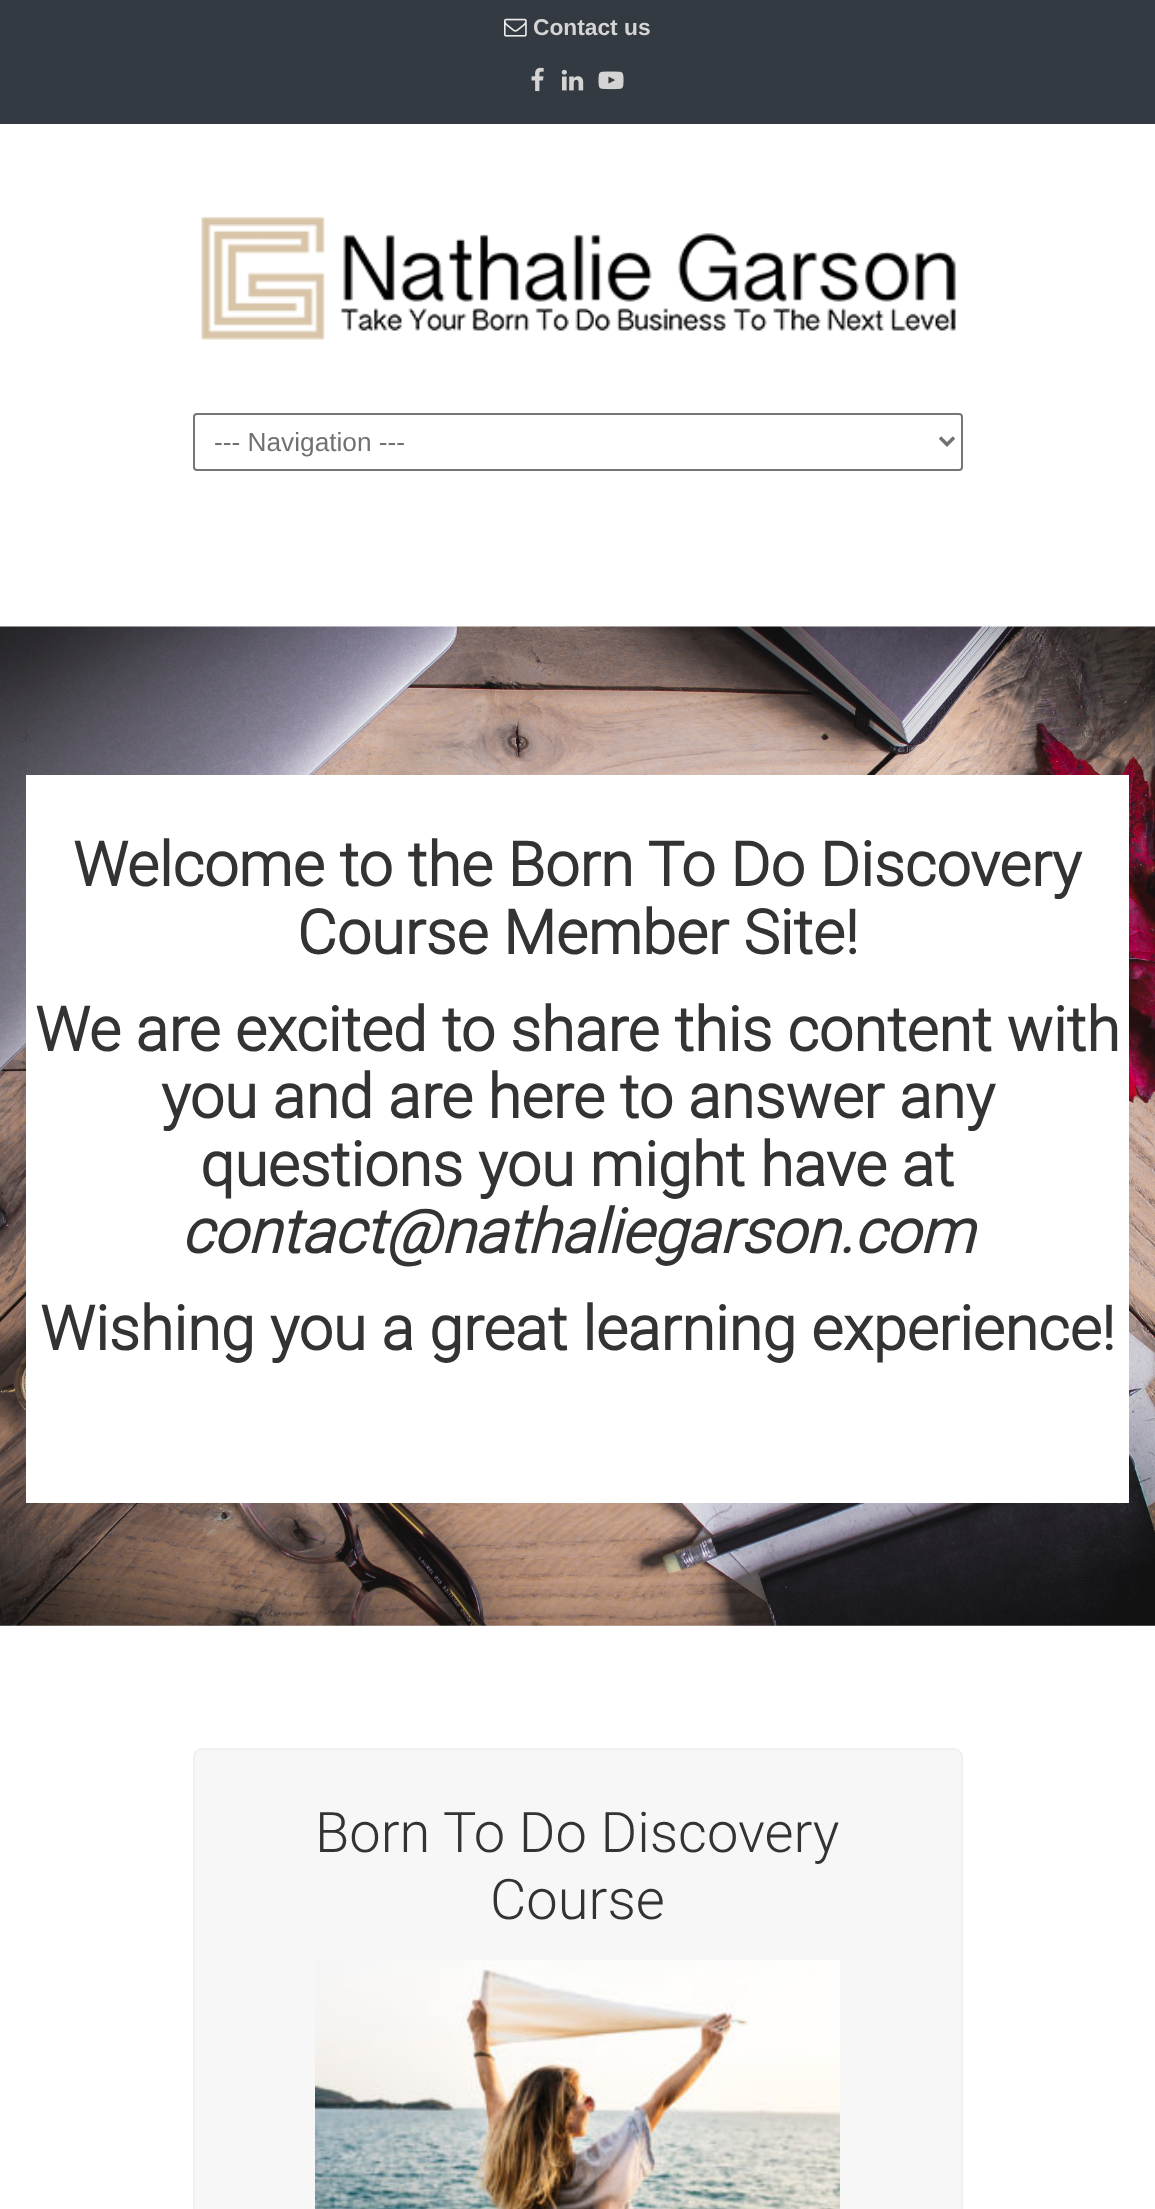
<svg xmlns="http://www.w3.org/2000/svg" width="1155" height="2209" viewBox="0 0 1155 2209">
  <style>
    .t1 { font: bold 22.75px Liberation Sans; fill: #d4d4d4; }
    .t2 { font: 26.25px Liberation Sans; fill: #717171; }
    .t3 { font: bold 61.25px Roboto; fill: #333; }
    .t4 { font: italic bold 61.25px Roboto; fill: #333; }
    .t5 { font: 300 56px Roboto; fill: #333; }
  </style>
  <rect width="100%" height="100%" fill="#fff"/>
  <rect x="0" y="0" width="1155" height="124" fill="#343a41"/>
  <image x="504" y="18" width="23" height="19" href="images/1.png"/>
  <text x="533" y="35" class="t1">Contact us</text>
  <image x="531" y="67" width="13" height="25" href="images/2.png"/>
  <image x="561" y="69" width="23" height="22" href="images/3.png"/>
  <image x="598" y="71" width="26" height="19" href="images/4.png"/>
  <image x="201" y="216" width="755" height="124" href="images/5.png"/>
  <rect x="194" y="414" width="768" height="56" rx="3" fill="none" stroke="#767676" stroke-width="2"/>
  <path d="M940 437.5L947 444.5L954 437.5" fill="none" stroke="#717171" stroke-width="3.5"/>
  <text x="214" y="451" class="t2">--- Navigation ---</text>
  <image x="0" y="626" width="1155" height="1000" href="images/6.png"/>
  <rect x="26" y="775" width="1103" height="728" fill="#fff"/>
  <text x="73" y="886" class="t3">Welcome to the Born To Do Discovery</text>
  <text x="297" y="954" class="t3">Course Member Site!</text>
  <text x="35" y="1051" class="t3">We are excited to share this content with</text>
  <text x="161" y="1118" class="t3">you and are here to answer any</text>
  <text x="200" y="1186" class="t3">questions you might have at</text>
  <text x="181" y="1253" class="t4">contact@nathaliegarson.com</text>
  <text x="40" y="1350" class="t3">Wishing you a great learning experience!</text>
  <rect x="194" y="1749" width="768" height="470" rx="8" fill="#f7f7f7" stroke="#f0f0f0" stroke-width="2"/>
  <text x="315" y="1852" class="t5">Born To Do Discovery</text>
  <text x="490" y="1919" class="t5">Course</text>
  <image x="315" y="1960" width="525" height="249" href="images/7.png"/>
</svg>
